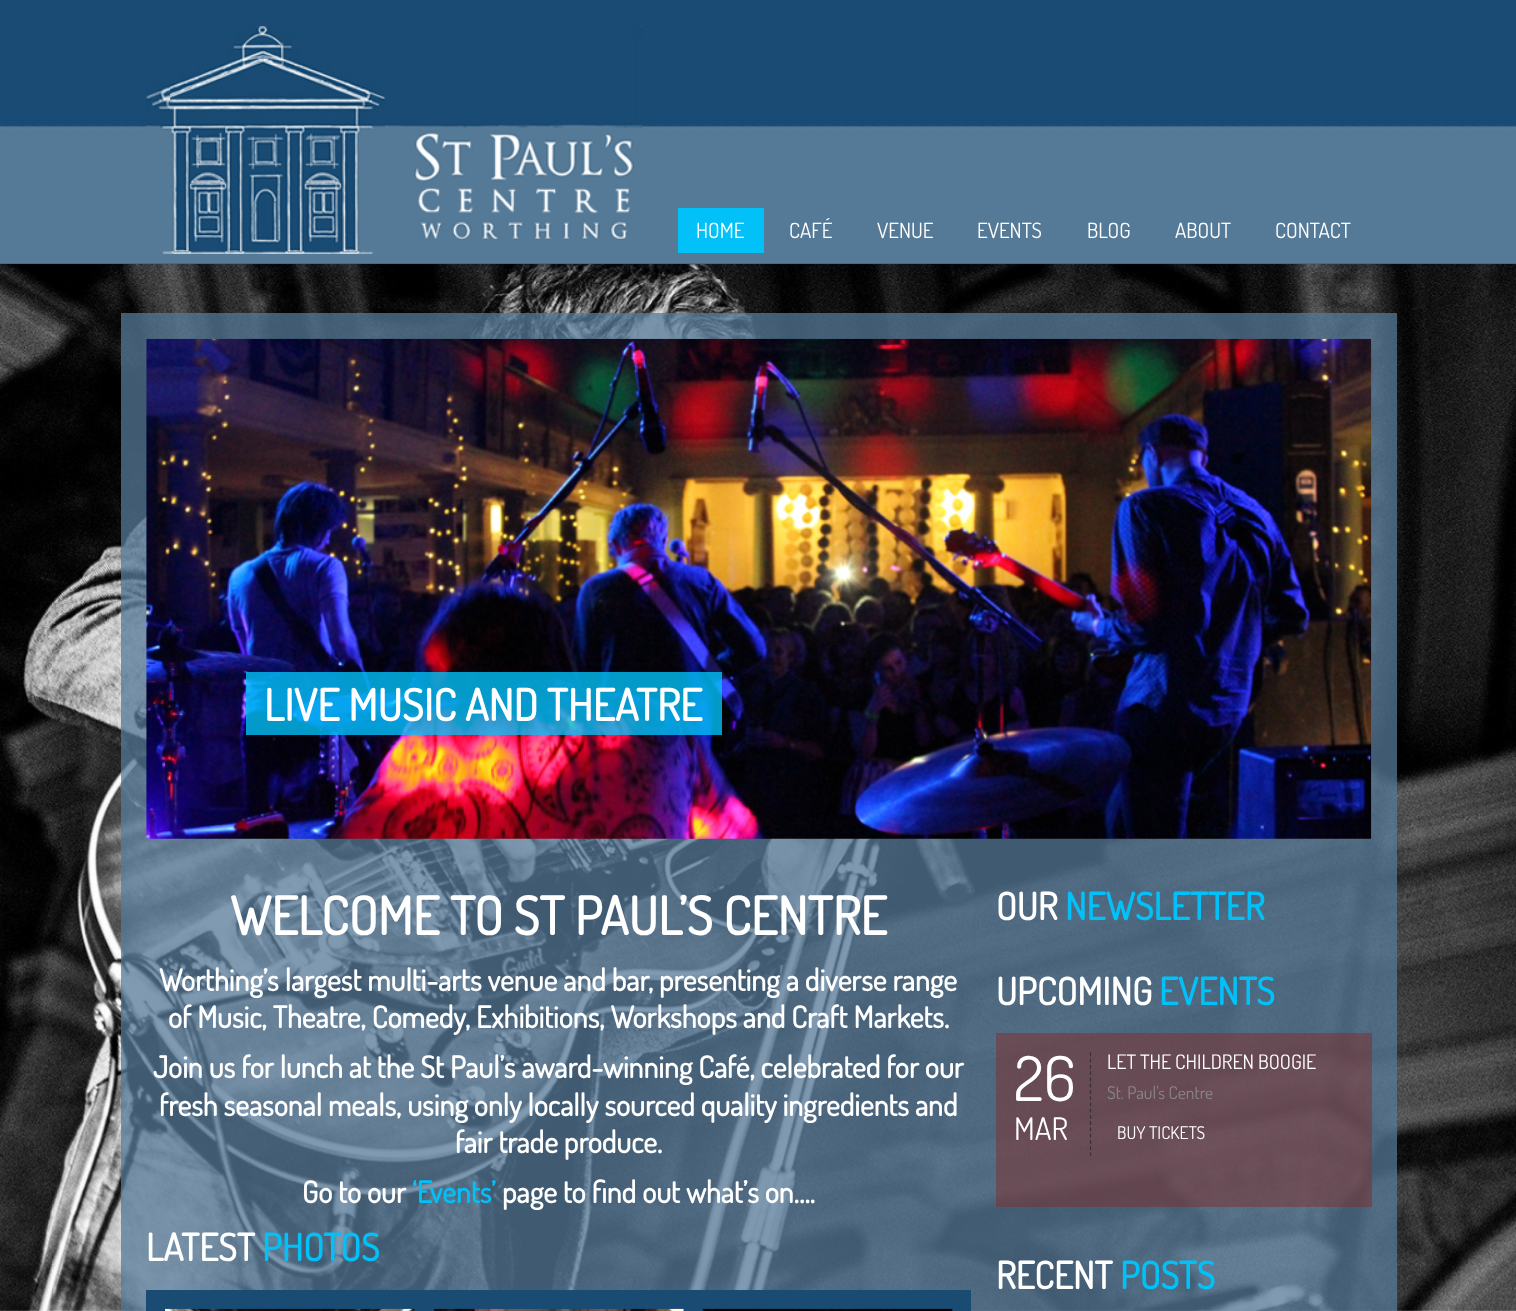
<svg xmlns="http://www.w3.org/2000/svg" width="1516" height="1311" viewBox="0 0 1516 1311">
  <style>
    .t1 { font: 21px Dosis; fill: #fff; }
    .t2 { font: bold 43.75px Dosis; fill: #fff; }
    .t3 { font: bold 52.5px Dosis; fill: #fff; }
    .t4 { font: bold 30px Dosis; fill: #fff; }
    .t5 { font: bold 30px Dosis; fill: #02c0f8; }
    .t6 { font: bold 37.5px Dosis; fill: #fff; }
    .t7 { font: bold 37.5px Dosis; fill: #02c0f8; }
    .t8 { font: 62px Dosis; fill: #fff; }
    .t9 { font: 31px Dosis; fill: #fff; }
    .t10 { font: 20px Dosis; fill: #fff; }
    .t11 { font: 17.5px Dosis; fill: #888; }
    .t12 { font: 17.5px Dosis; fill: #fff; }
  </style>
  <rect width="100%" height="100%" fill="#fff"/>
  <rect x="0" y="0" width="1516" height="264" fill="#1a4b74"/>
  <image x="0" y="120" width="1516" height="144" href="images/1.png"/>
  <image x="146" y="26" width="498" height="228" href="images/2.png"/>
  <rect x="678" y="208" width="86" height="45" fill="#02c0f8"/>
  <text x="696" y="238" class="t1">HOME</text>
  <text x="789" y="238" class="t1">CAFÉ</text>
  <text x="877" y="238" class="t1">VENUE</text>
  <text x="977" y="238" class="t1">EVENTS</text>
  <text x="1087" y="238" class="t1">BLOG</text>
  <text x="1175" y="238" class="t1">ABOUT</text>
  <text x="1275" y="238" class="t1">CONTACT</text>
  <image x="0" y="264" width="1516" height="1047" href="images/3.png"/>
  <rect x="121" y="313" width="1276" height="998" fill="#557997bf"/>
  <image x="146" y="338" width="1226" height="501" href="images/4.png"/>
  <rect x="246" y="672" width="476" height="63" fill="#02c0f8cc"/>
  <text x="264" y="721" class="t2">LIVE MUSIC AND THEATRE</text>
  <text x="230" y="935" class="t3">WELCOME TO ST PAUL’S CENTRE</text>
  <text x="159" y="991" class="t4">Worthing’s largest multi-arts venue and bar, presenting a diverse range</text>
  <text x="168" y="1028" class="t4">of Music, Theatre, Comedy, Exhibitions, Workshops and Craft Markets.</text>
  <text x="153" y="1078" class="t4">Join us for lunch at the St Paul’s award-winning Café, celebrated for our</text>
  <text x="159" y="1116" class="t4">fresh seasonal meals, using only locally sourced quality ingredients and</text>
  <text x="455" y="1153" class="t4">fair trade produce.</text>
  <text x="302" y="1203" class="t4">Go to our</text>
  <text x="412" y="1203" class="t5">‘Events’</text>
  <text x="502" y="1203" class="t4">page to find out what’s on….</text>
  <text x="146" y="1261" class="t6">LATEST</text>
  <text x="262" y="1261" class="t7">PHOTOS</text>
  <rect x="146" y="1290" width="825" height="21" fill="#194b73"/>
  <image x="165" y="1308" width="250" height="3" href="images/5.png"/>
  <image x="433" y="1308" width="251" height="3" href="images/6.png"/>
  <image x="702" y="1308" width="251" height="3" href="images/7.png"/>
  <text x="996" y="920" class="t6">OUR</text>
  <text x="1065" y="920" class="t7">NEWSLETTER</text>
  <text x="996" y="1005" class="t6">UPCOMING</text>
  <text x="1159" y="1005" class="t7">EVENTS</text>
  <rect x="996" y="1033" width="376" height="174" fill="#802c2a80"/>
  <path d="M1090.5 1052.5V1156" fill="none" stroke="#333" stroke-width="1.2" stroke-dasharray="3.75 2.5"/>
  <text x="1014" y="1101" class="t8">26</text>
  <text x="1014" y="1140" class="t9">MAR</text>
  <text x="1107" y="1069" class="t10">LET THE CHILDREN BOOGIE</text>
  <text x="1107" y="1099" class="t11">St. Paul's Centre</text>
  <text x="1117" y="1139" class="t12">BUY TICKETS</text>
  <text x="996" y="1289" class="t6">RECENT</text>
  <text x="1120" y="1289" class="t7">POSTS</text>
</svg>
